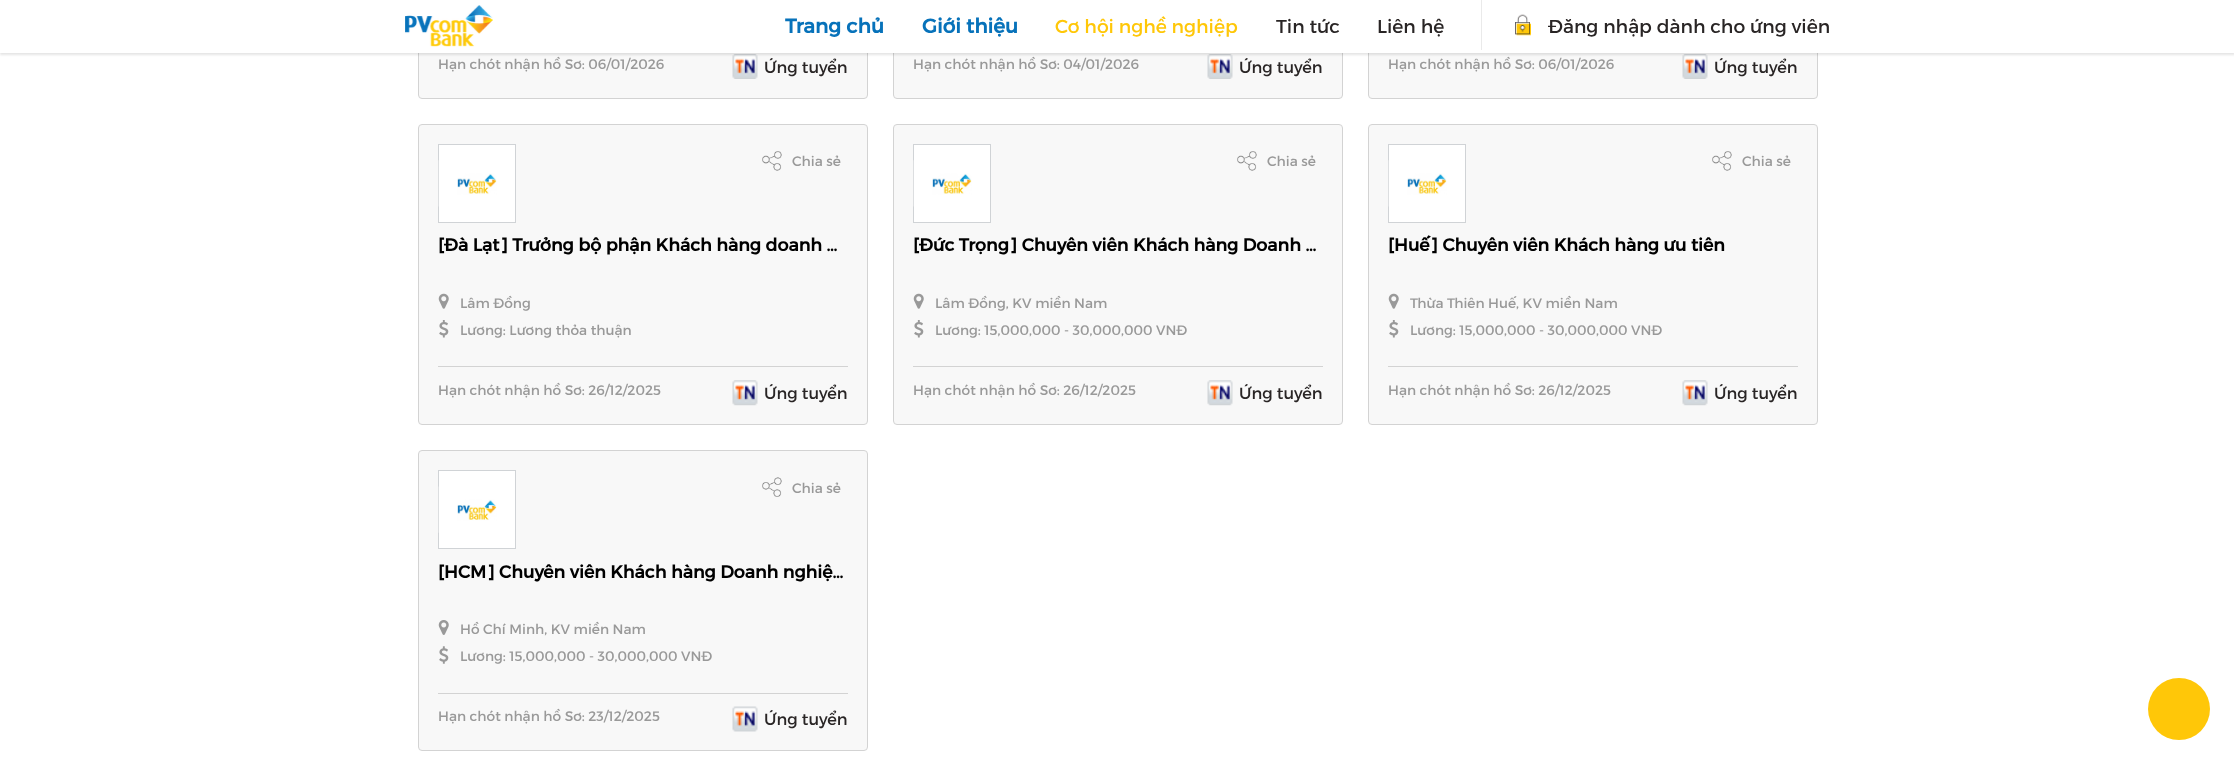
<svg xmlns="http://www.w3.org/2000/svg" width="2234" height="764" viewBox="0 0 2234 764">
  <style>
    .t1 { font: bold 20px Montserrat; fill: #0772ba; }
    .t2 { font: 18.75px Montserrat; fill: #ffc708; }
    .t3 { font: 18.75px Montserrat; fill: #292525; }
    .t4 { font: 13.75px Montserrat; fill: #999; }
    .t5 { font: 16.25px Montserrat; fill: #292525; }
    .t6 { font: bold 17.5px Montserrat; fill: #000; }
  </style>
  <rect width="100%" height="100%" fill="#fff"/>
  <rect x="418.5" y="-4.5" width="449" height="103" rx="3.5" fill="#f8f8f8" stroke="#d3d3d3"/>
  <image x="732" y="54" width="26" height="25" href="images/3.png"/>
  <rect x="893.5" y="-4.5" width="449" height="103" rx="3.5" fill="#f8f8f8" stroke="#d3d3d3"/>
  <image x="1207" y="54" width="26" height="25" href="images/3.png"/>
  <rect x="1368.5" y="-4.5" width="449" height="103" rx="3.5" fill="#f8f8f8" stroke="#d3d3d3"/>
  <image x="1682" y="54" width="26" height="25" href="images/4.png"/>
  <rect x="0" y="-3" width="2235" height="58" fill="#0000001a" filter="blur(1px)"/>
  <rect x="0" y="0" width="2234" height="53" fill="#fff"/>
  <image x="405" y="5" width="88" height="42" href="images/1.png"/>
  <text x="785" y="33" class="t1">Trang chủ</text>
  <text x="922" y="33" class="t1">Giới thiệu</text>
  <text x="1055" y="33" class="t2">Cơ hội nghề nghiệp</text>
  <text x="1276" y="33" class="t3">Tin tức</text>
  <text x="1377" y="33" class="t3">Liên hệ</text>
  <rect x="1481" y="0" width="1" height="50" fill="#eaeaea"/>
  <image x="1515" y="14" width="16" height="22" href="images/2.png"/>
  <text x="1548" y="33" class="t3">Đăng nhập dành cho ứng viên</text>
  <text x="438" y="69" class="t4">Hạn chót nhận hồ Sơ: 06/01/2026</text>
  <text x="764" y="73" class="t5">Ứng tuyển</text>
  <text x="913" y="69" class="t4">Hạn chót nhận hồ Sơ: 04/01/2026</text>
  <text x="1239" y="73" class="t5">Ứng tuyển</text>
  <text x="1388" y="69" class="t4">Hạn chót nhận hồ Sơ: 06/01/2026</text>
  <text x="1714" y="73" class="t5">Ứng tuyển</text>
  <rect x="418.5" y="124.5" width="449" height="300" rx="3.5" fill="#f8f8f8" stroke="#d3d3d3"/>
  <rect x="438.5" y="144.5" width="77" height="78" fill="#fff" stroke="#d0d3d6"/>
  <image x="438" y="160" width="59" height="47" href="images/5.png"/>
  <image x="762" y="151" width="20" height="20" href="images/6.png"/>
  <text x="792" y="166" class="t4">Chia sẻ</text>
  <text x="438" y="251" class="t6">[Đà Lạt] Trưởng bộ phận Khách hàng doanh …</text>
  <image x="438" y="293" width="11" height="16" href="images/7.png"/>
  <text x="460" y="308" class="t4">Lâm Đồng</text>
  <image x="439" y="320" width="10" height="18" href="images/8.png"/>
  <text x="460" y="335" class="t4">Lương: Lương thỏa thuận</text>
  <rect x="438" y="366" width="410" height="1" fill="#d3d3d3"/>
  <text x="438" y="395" class="t4">Hạn chót nhận hồ Sơ: 26/12/2025</text>
  <image x="732" y="380" width="26" height="26" href="images/9.png"/>
  <text x="764" y="399" class="t5">Ứng tuyển</text>
  <rect x="893.5" y="124.5" width="449" height="300" rx="3.5" fill="#f8f8f8" stroke="#d3d3d3"/>
  <rect x="913.5" y="144.5" width="77" height="78" fill="#fff" stroke="#d0d3d6"/>
  <image x="913" y="160" width="59" height="47" href="images/5.png"/>
  <image x="1237" y="151" width="20" height="20" href="images/6.png"/>
  <text x="1267" y="166" class="t4">Chia sẻ</text>
  <text x="913" y="251" class="t6">[Đức Trọng] Chuyên viên Khách hàng Doanh …</text>
  <image x="913" y="293" width="11" height="16" href="images/7.png"/>
  <text x="935" y="308" class="t4">Lâm Đồng, KV miền Nam</text>
  <image x="914" y="320" width="10" height="18" href="images/8.png"/>
  <text x="935" y="335" class="t4">Lương: 15,000,000 - 30,000,000 VNĐ</text>
  <rect x="913" y="366" width="410" height="1" fill="#d3d3d3"/>
  <text x="913" y="395" class="t4">Hạn chót nhận hồ Sơ: 26/12/2025</text>
  <image x="1207" y="380" width="26" height="26" href="images/9.png"/>
  <text x="1239" y="399" class="t5">Ứng tuyển</text>
  <rect x="1368.5" y="124.5" width="449" height="300" rx="3.5" fill="#f8f8f8" stroke="#d3d3d3"/>
  <rect x="1388.5" y="144.5" width="77" height="78" fill="#fff" stroke="#d0d3d6"/>
  <image x="1388" y="160" width="59" height="47" href="images/5.png"/>
  <image x="1712" y="151" width="20" height="20" href="images/6.png"/>
  <text x="1742" y="166" class="t4">Chia sẻ</text>
  <text x="1388" y="251" class="t6">[Huế] Chuyên viên Khách hàng ưu tiên</text>
  <image x="1388" y="293" width="11" height="16" href="images/7.png"/>
  <text x="1410" y="308" class="t4">Thừa Thiên Huế, KV miền Nam</text>
  <image x="1389" y="320" width="10" height="18" href="images/8.png"/>
  <text x="1410" y="335" class="t4">Lương: 15,000,000 - 30,000,000 VNĐ</text>
  <rect x="1388" y="366" width="410" height="1" fill="#d3d3d3"/>
  <text x="1388" y="395" class="t4">Hạn chót nhận hồ Sơ: 26/12/2025</text>
  <image x="1682" y="380" width="26" height="26" href="images/10.png"/>
  <text x="1714" y="399" class="t5">Ứng tuyển</text>
  <rect x="418.5" y="450.5" width="449" height="300" rx="3.5" fill="#f8f8f8" stroke="#d3d3d3"/>
  <rect x="438.5" y="470.5" width="77" height="78" fill="#fff" stroke="#d0d3d6"/>
  <image x="438" y="486" width="59" height="47" href="images/11.png"/>
  <image x="762" y="477" width="20" height="20" href="images/12.png"/>
  <text x="792" y="493" class="t4">Chia sẻ</text>
  <text x="438" y="578" class="t6">[HCM] Chuyên viên Khách hàng Doanh nghiệ…</text>
  <image x="438" y="620" width="11" height="15" href="images/13.png"/>
  <text x="460" y="634" class="t4">Hồ Chí Minh, KV miền Nam</text>
  <image x="439" y="646" width="10" height="18" href="images/14.png"/>
  <text x="460" y="661" class="t4">Lương: 15,000,000 - 30,000,000 VNĐ</text>
  <rect x="438" y="693" width="410" height="1" fill="#d3d3d3"/>
  <text x="438" y="721" class="t4">Hạn chót nhận hồ Sơ: 23/12/2025</text>
  <image x="732" y="706" width="26" height="26" href="images/15.png"/>
  <text x="764" y="725" class="t5">Ứng tuyển</text>
  <circle cx="2179" cy="709" r="31" fill="#ffc708"/>
</svg>
